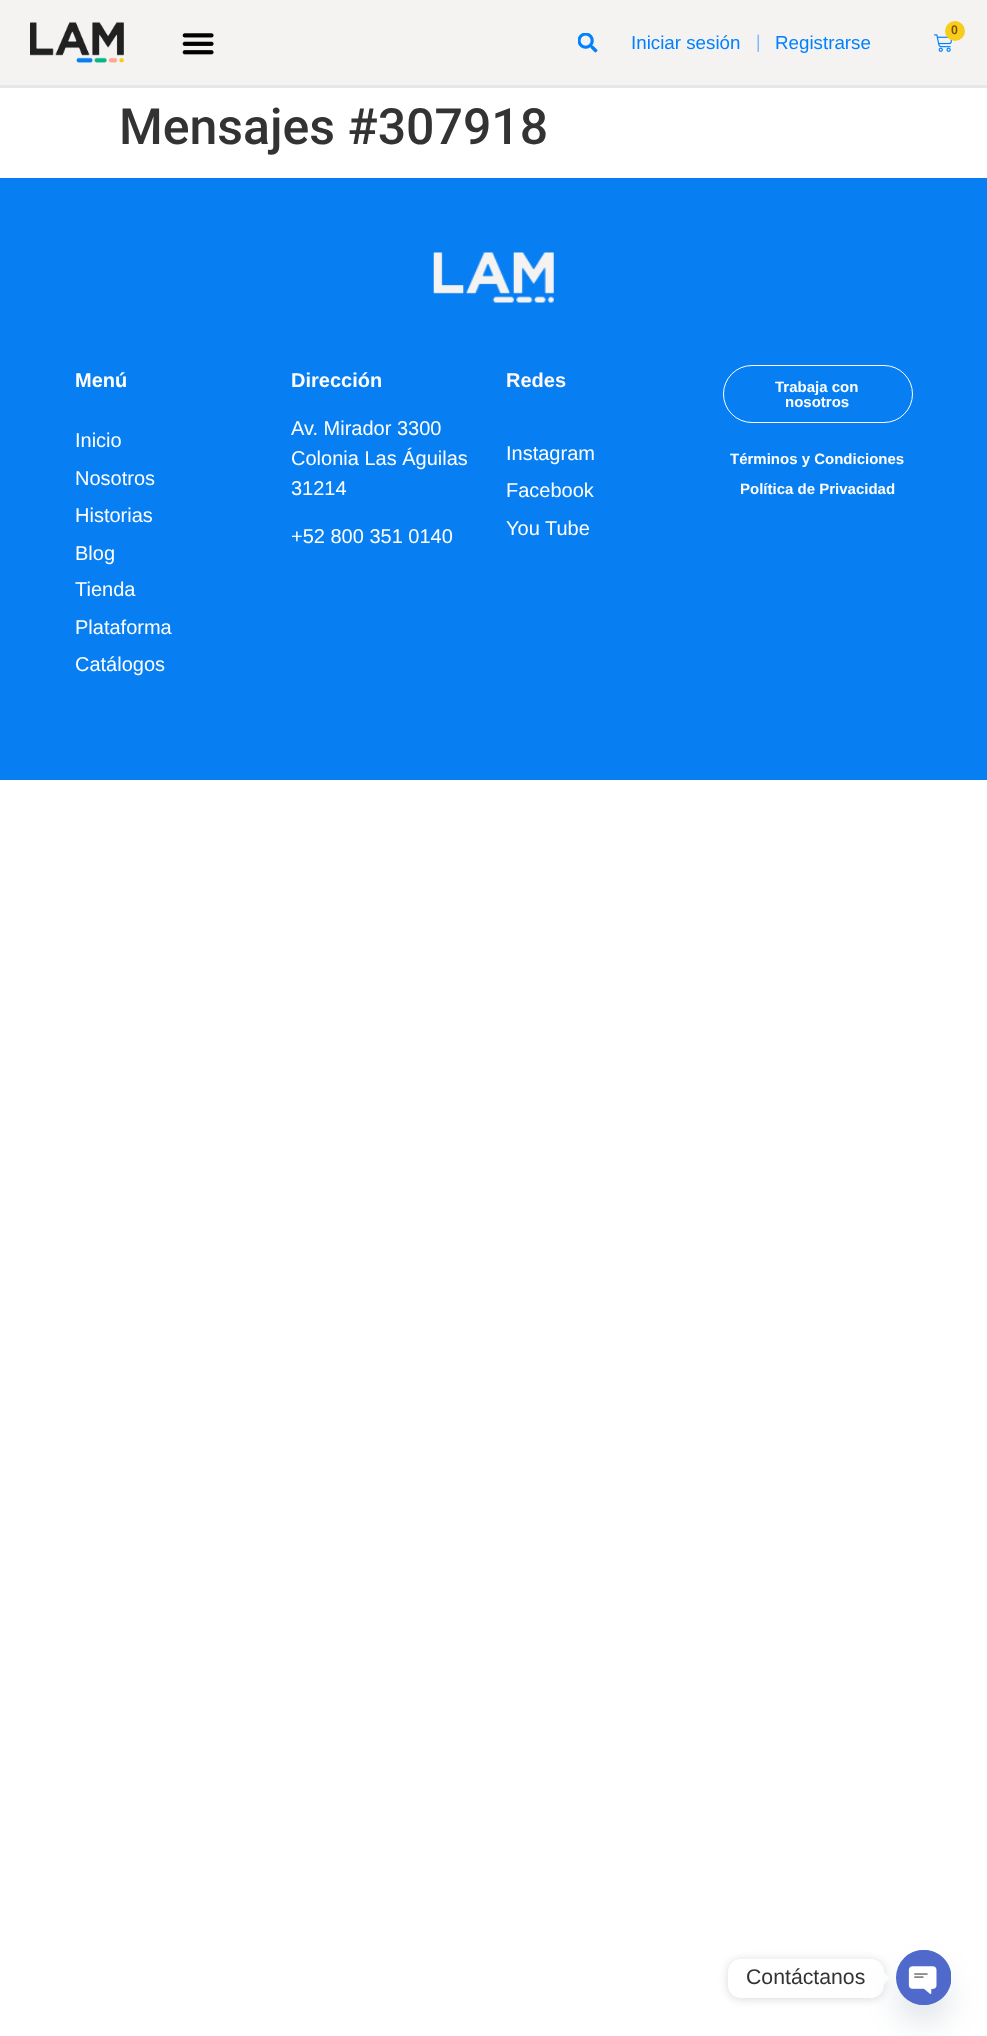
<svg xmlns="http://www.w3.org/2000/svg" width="987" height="2036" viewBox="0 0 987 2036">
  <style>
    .t1 { font: 600 12px Roboto; fill: #804800; }
    .t2 { font: 18.75px Liberation Sans; fill: #0081ff; }
    .t3 { font: 200 20px Roboto; fill: #0081ff; }
    .t4 { font: 500 50px Roboto; fill: #333; }
    .t5 { font: bold 20px Liberation Sans; fill: #fff; }
    .t6 { font: 20px Liberation Sans; fill: #fff; }
    .t7 { font: bold 20px Liberation Sans; fill: #fff9f9; }
    .t8 { font: bold 15px Liberation Sans; fill: #fff; }
    .t9 { font: 21.25px Liberation Sans; fill: #333; }
  </style>
  <rect width="100%" height="100%" fill="#fff"/>
  <rect x="0" y="0" width="987" height="85" fill="#f4f3f2"/>
  <rect x="0" y="85" width="987" height="3" fill="#e7e7e7"/>
  <image x="30" y="22" width="94" height="41" href="images/1.png"/>
  <image x="182" y="33" width="32" height="22" href="images/2.png"/>
  <image x="934" y="34" width="18" height="18" href="images/3.png"/>
  <circle cx="955" cy="31" r="10" fill="#f7cd1b"/>
  <text x="951" y="34" class="t1">0</text>
  <image x="578" y="33" width="20" height="20" href="images/4.png"/>
  <text x="631" y="49" class="t2">Iniciar sesión</text>
  <text x="756" y="49" class="t3">|</text>
  <text x="775" y="49" class="t2">Registrarse</text>
  <text x="119" y="144" class="t4">Mensajes #307918</text>
  <rect x="0" y="178" width="987" height="602" fill="#077ff3"/>
  <image x="433" y="252" width="121" height="51" href="images/5.png"/>
  <text x="75" y="387" class="t5">Menú</text>
  <text x="75" y="447" class="t6">Inicio</text>
  <text x="75" y="485" class="t6">Nosotros</text>
  <text x="75" y="522" class="t6">Historias</text>
  <text x="75" y="560" class="t6">Blog</text>
  <text x="75" y="596" class="t6">Tienda</text>
  <text x="75" y="634" class="t6">Plataforma</text>
  <text x="75" y="671" class="t6">Catálogos</text>
  <text x="291" y="387" class="t5">Dirección</text>
  <text x="291" y="435" class="t6">Av. Mirador 3300</text>
  <text x="291" y="465" class="t6">Colonia Las Águilas</text>
  <text x="291" y="495" class="t6">31214</text>
  <text x="291" y="543" class="t6">+52 800 351 0140</text>
  <text x="506" y="387" class="t7">Redes</text>
  <text x="506" y="460" class="t6">Instagram</text>
  <text x="506" y="497" class="t6">Facebook</text>
  <text x="506" y="535" class="t6">You Tube</text>
  <rect x="723.5" y="365.5" width="189" height="57" rx="28.5" fill="none" stroke="#fff"/>
  <text x="775" y="392" class="t8">Trabaja con</text>
  <text x="785" y="407" class="t8">nosotros</text>
  <text x="730" y="464" class="t8">Términos y Condiciones</text>
  <text x="740" y="494" class="t8">Política de Privacidad</text>
  <rect x="728" y="1960" width="156" height="39" rx="13" fill="#00000026" filter="blur(5px)"/>
  <rect x="728" y="1959" width="156" height="39" rx="13" fill="#fff"/>
  <text x="746" y="1984" class="t9">Contáctanos</text>
  <path d="M884 1984.5V1972L890 1978Z" fill="#fff"/>
  <rect x="896" y="1970" width="55" height="55" rx="27.5" fill="#49687e29" filter="blur(15px)"/>
  <circle cx="923.5" cy="1977.5" r="27.5" fill="#4f6aca"/>
  <image x="904" y="1950" width="47" height="55" href="images/6.png"/>
</svg>
